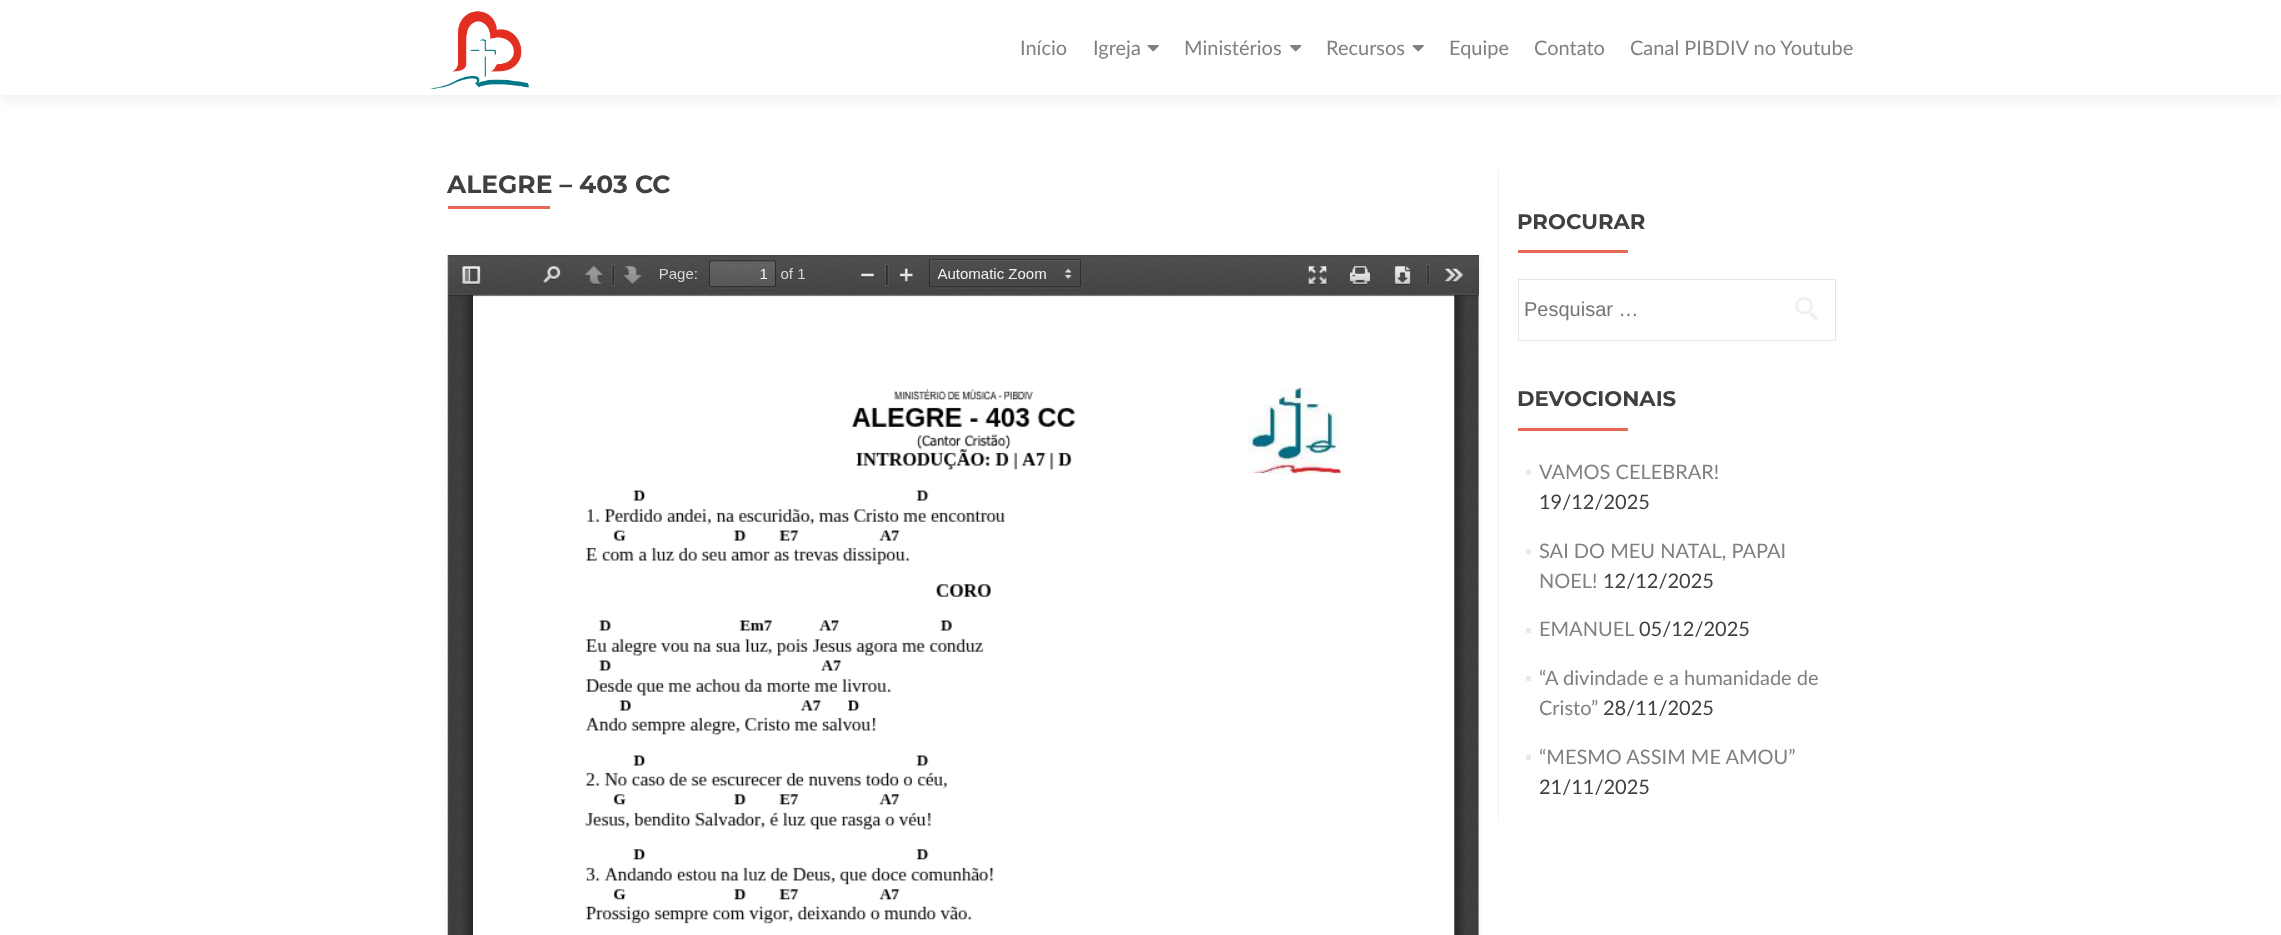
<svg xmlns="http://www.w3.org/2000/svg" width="2281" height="935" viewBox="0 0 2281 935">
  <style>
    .t1 { font: 20px Lato; fill: #808080; }
    .t2 { font: bold 25px Montserrat; fill: #404040; }
    .t3 { font: bold 21.25px Montserrat; fill: #404040; }
    .t4 { font: 20px Liberation Sans; fill: #757575; }
    .t5 { font: 20px Lato; fill: #404040; }
  </style>
  <rect width="100%" height="100%" fill="#fff"/>
  <rect x="0" y="6" width="2281" height="95" fill="#32323214" filter="blur(7px)"/>
  <rect x="0" y="0" width="2281" height="95" fill="#fff"/>
  <image x="429" y="11" width="100" height="78" href="images/1.png"/>
  <text x="1020" y="55" class="t1">Início</text>
  <text x="1093" y="55" class="t1">Igreja</text>
  <image x="1147" y="45" width="12" height="7" href="images/2.png"/>
  <text x="1184" y="55" class="t1">Ministérios</text>
  <image x="1290" y="45" width="12" height="7" href="images/3.png"/>
  <text x="1326" y="55" class="t1">Recursos</text>
  <image x="1412" y="45" width="12" height="7" href="images/2.png"/>
  <text x="1449" y="55" class="t1">Equipe</text>
  <text x="1534" y="55" class="t1">Contato</text>
  <text x="1630" y="55" class="t1">Canal PIBDIV no Youtube</text>
  <text x="447" y="193" class="t2">ALEGRE – 403 CC</text>
  <rect x="448" y="206" width="102" height="3" fill="#e96656"/>
  <rect x="448" y="259" width="1031" height="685" fill="#eee" filter="blur(3px)"/>
  <image x="447" y="255" width="1032" height="680" href="images/4.png"/>
  <rect x="1498" y="170" width="1" height="650" fill="#f2f2f2"/>
  <text x="1517" y="229" class="t3">PROCURAR</text>
  <rect x="1518" y="250" width="110" height="3" fill="#e96656"/>
  <rect x="1518.5" y="279.5" width="317" height="61" fill="none" stroke="#e6e6e6"/>
  <text x="1524" y="316" class="t4">Pesquisar …</text>
  <image x="1795" y="296" width="23" height="24" href="images/5.png"/>
  <text x="1517" y="406" class="t3">DEVOCIONAIS</text>
  <rect x="1518" y="428" width="110" height="3" fill="#e96656"/>
  <rect x="1526" y="470" width="5" height="5" fill="#e9e9e9"/>
  <text x="1539" y="479" class="t1">VAMOS CELEBRAR!</text>
  <text x="1539" y="509" class="t5">19/12/2025</text>
  <rect x="1526" y="549" width="5" height="5" fill="#e9e9e9"/>
  <text x="1539" y="558" class="t1">SAI DO MEU NATAL, PAPAI</text>
  <text x="1539" y="588" class="t1">NOEL!</text>
  <text x="1603" y="588" class="t5">12/12/2025</text>
  <rect x="1526" y="628" width="5" height="5" fill="#e9e9e9"/>
  <text x="1539" y="636" class="t1">EMANUEL</text>
  <text x="1639" y="636" class="t5">05/12/2025</text>
  <rect x="1526" y="676" width="5" height="5" fill="#e9e9e9"/>
  <text x="1539" y="685" class="t1">“A divindade e a humanidade de</text>
  <text x="1539" y="715" class="t1">Cristo”</text>
  <text x="1603" y="715" class="t5">28/11/2025</text>
  <rect x="1526" y="755" width="5" height="5" fill="#e9e9e9"/>
  <text x="1539" y="764" class="t1">“MESMO ASSIM ME AMOU”</text>
  <text x="1539" y="794" class="t5">21/11/2025</text>
</svg>
